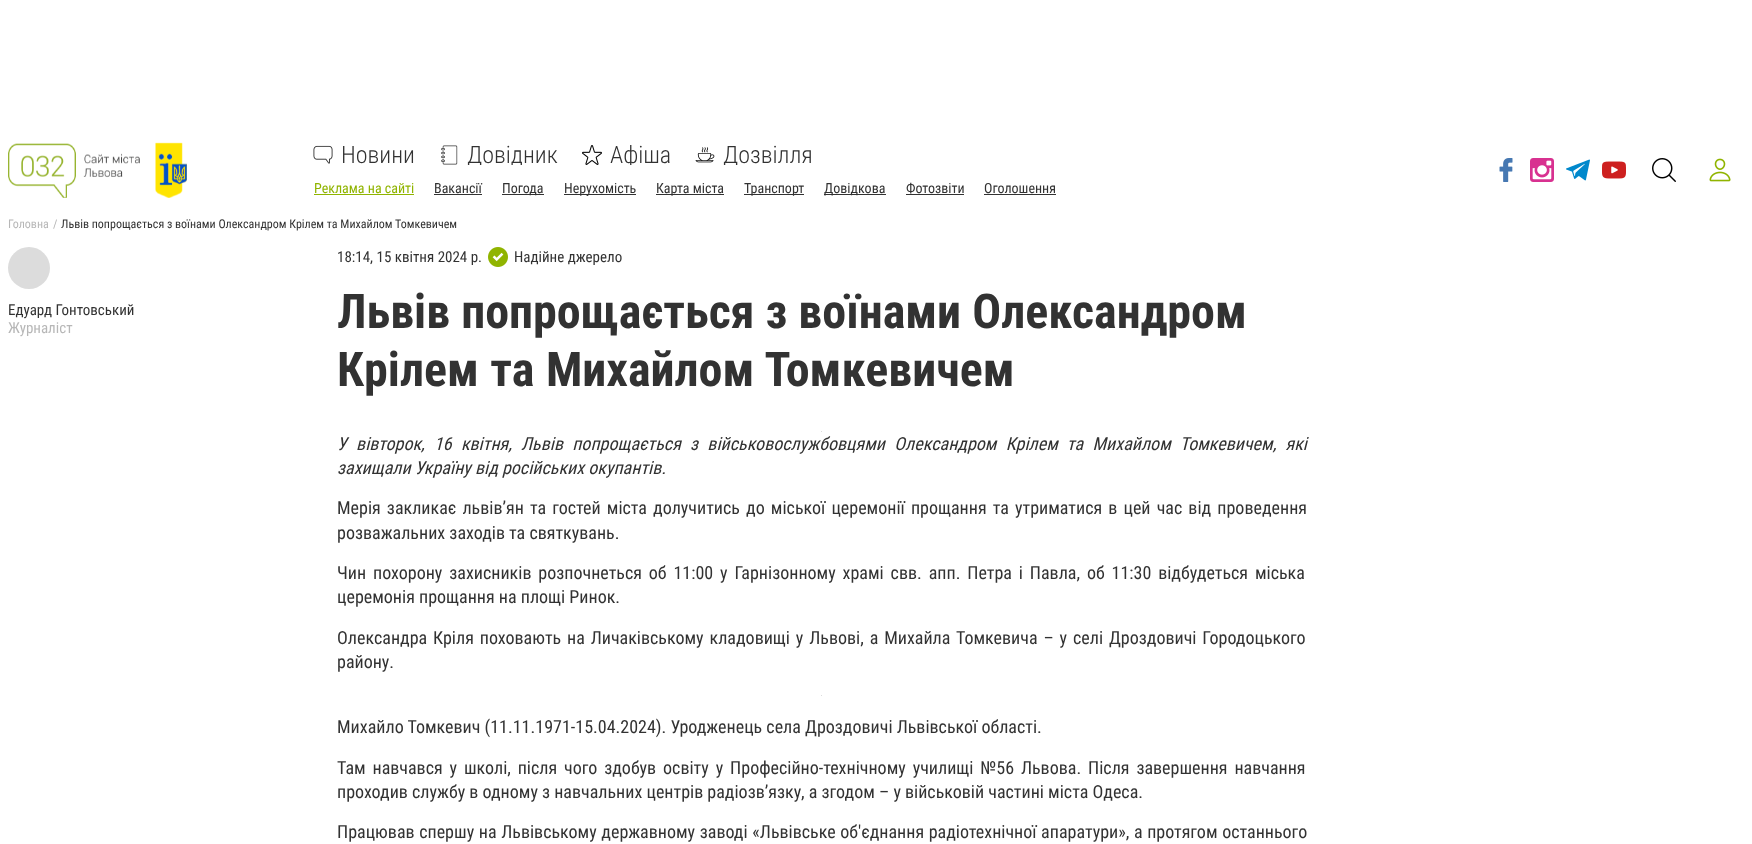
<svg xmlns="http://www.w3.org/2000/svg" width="1752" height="844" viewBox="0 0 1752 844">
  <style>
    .t1 { font: 300 24px Roboto Condensed; fill: #323232; }
    .t2 { font: 14px Roboto Condensed; fill: #90b400; }
    .t3 { font: 14px Roboto Condensed; fill: #323232; }
    .t4 { font: 12px Roboto Condensed; fill: #b7b7b7; }
    .t5 { font: 12px Roboto Condensed; fill: #323232; }
    .t6 { font: 15px Roboto Condensed; fill: #323232; }
    .t7 { font: 15px Roboto Condensed; fill: #b7b7b7; }
    .t8 { font: bold 48px Roboto Condensed; fill: #323232; }
    .t9 { font: italic 18px Roboto Condensed; fill: #323232; }
    .t10 { font: 18px Roboto Condensed; fill: #323232; }
  </style>
  <defs>
    <clipPath id="clip1"><rect x="439" y="145" width="119" height="20"/></clipPath>
    <clipPath id="clip2"><rect x="582" y="145" width="89" height="20"/></clipPath>
    <clipPath id="clip3"><rect x="695" y="145" width="117" height="20"/></clipPath>
  </defs>
  <rect width="100%" height="100%" fill="#fff"/>
  <image x="8" y="142" width="179" height="56" href="images/1.png"/>
  <image x="313" y="145" width="20" height="19" href="images/2.png"/>
  <text x="341" y="163" class="t1">Новини</text>
  <image x="441" y="145" width="17" height="20" href="images/3.png"/>
  <g clip-path="url(#clip1)">
    <text x="467" y="163" class="t1">Довідник</text>
  </g>
  <image x="582" y="145" width="20" height="20" href="images/4.png"/>
  <g clip-path="url(#clip2)">
    <text x="610" y="163" class="t1">Афіша</text>
  </g>
  <image x="695" y="147" width="20" height="16" href="images/5.png"/>
  <g clip-path="url(#clip3)">
    <text x="723" y="163" class="t1">Дозвілля</text>
  </g>
  <text x="314" y="193" class="t2">Реклама на сайті</text>
  <rect x="314" y="194" width="100" height="1" fill="#90b400"/>
  <text x="434" y="193" class="t3">Вакансії</text>
  <rect x="434" y="194" width="48" height="1" fill="#323232"/>
  <rect x="502" y="194" width="42" height="1" fill="#323232"/>
  <text x="502" y="193" class="t3">Погода</text>
  <rect x="564" y="194" width="72" height="1" fill="#323232"/>
  <text x="564" y="193" class="t3">Нерухомість</text>
  <rect x="656" y="194" width="68" height="1" fill="#323232"/>
  <text x="656" y="193" class="t3">Карта міста</text>
  <rect x="744" y="194" width="60" height="1" fill="#323232"/>
  <text x="744" y="193" class="t3">Транспорт</text>
  <rect x="824" y="194" width="62" height="1" fill="#323232"/>
  <text x="824" y="193" class="t3">Довідкова</text>
  <text x="906" y="193" class="t3">Фотозвіти</text>
  <rect x="906" y="194" width="58" height="1" fill="#323232"/>
  <text x="984" y="193" class="t3">Оголошення</text>
  <rect x="984" y="194" width="72" height="1" fill="#323232"/>
  <image x="1499" y="158" width="14" height="24" href="images/6.png"/>
  <image x="1530" y="158" width="24" height="24" href="images/7.png"/>
  <image x="1566" y="159" width="24" height="22" href="images/8.png"/>
  <image x="1602" y="161" width="24" height="18" href="images/9.png"/>
  <image x="1652" y="158" width="24" height="24" href="images/10.png"/>
  <image x="1709" y="158" width="22" height="24" href="images/11.png"/>
  <text x="8" y="228" class="t4">Головна</text>
  <text x="53" y="228" class="t4">/</text>
  <text x="61" y="228" class="t5">Львів попрощається з воїнами Олександром Крілем та Михайлом Томкевичем</text>
  <circle cx="29" cy="268" r="21" fill="#dcdcdc"/>
  <text x="8" y="315" class="t6">Едуард Гонтовський</text>
  <text x="8" y="333" class="t7">Журналіст</text>
  <text x="337" y="262" class="t6">18:14, 15 квітня 2024 р.</text>
  <image x="488" y="247" width="20" height="20" href="images/12.png"/>
  <text x="514" y="262" class="t6">Надійне джерело</text>
  <text x="337" y="328" class="t8">Львів попрощається з воїнами Олександром</text>
  <text x="337" y="386" word-spacing="0.5" class="t8">Крілем та Михайлом Томкевичем</text>
  <rect x="821" y="431" width="1" height="1" fill="#dcdcdc"/>
  <text x="337" y="450" word-spacing="5.1" class="t9">У вівторок, 16 квітня, Львів попрощається з військовослужбовцями Олександром Крілем та Михайлом Томкевичем, які</text>
  <text x="337" y="474" class="t9">захищали Україну від російських окупантів.</text>
  <text x="337" y="514" word-spacing="2" class="t10">Мерія закликає львів’ян та гостей міста долучитись до міської церемонії прощання та утриматися в цей час від проведення</text>
  <text x="337" y="539" class="t10">розважальних заходів та святкувань.</text>
  <text x="337" y="579" word-spacing="2.75" class="t10">Чин похорону захисників розпочнеться об 11:00 у Гарнізонному храмі свв. апп. Петра і Павла, об 11:30 відбудеться міська</text>
  <text x="337" y="603" class="t10">церемонія прощання на площі Ринок.</text>
  <text x="337" y="644" word-spacing="1.75" class="t10">Олександра Кріля поховають на Личаківському кладовищі у Львові, а Михайла Томкевича – у селі Дроздовичі Городоцького</text>
  <text x="337" y="668" class="t10">району.</text>
  <rect x="821" y="695" width="1" height="1" fill="#dcdcdc"/>
  <text x="337" y="733" class="t10">Михайло Томкевич (11.11.1971-15.04.2024). Уродженець села Дроздовичі Львівської області.</text>
  <text x="337" y="774" word-spacing="2.75" class="t10">Там навчався у школі, після чого здобув освіту у Професійно-технічному училищі №56 Львова. Після завершення навчання</text>
  <text x="337" y="798" class="t10">проходив службу в одному з навчальних центрів радіозвʼязку, а згодом – у військовій частині міста Одеса.</text>
  <text x="337" y="838" word-spacing="0.5" class="t10">Працював спершу на Львівському державному заводі «Львівське об'єднання радіотехнічної апаратури», а протягом останнього</text>
</svg>
